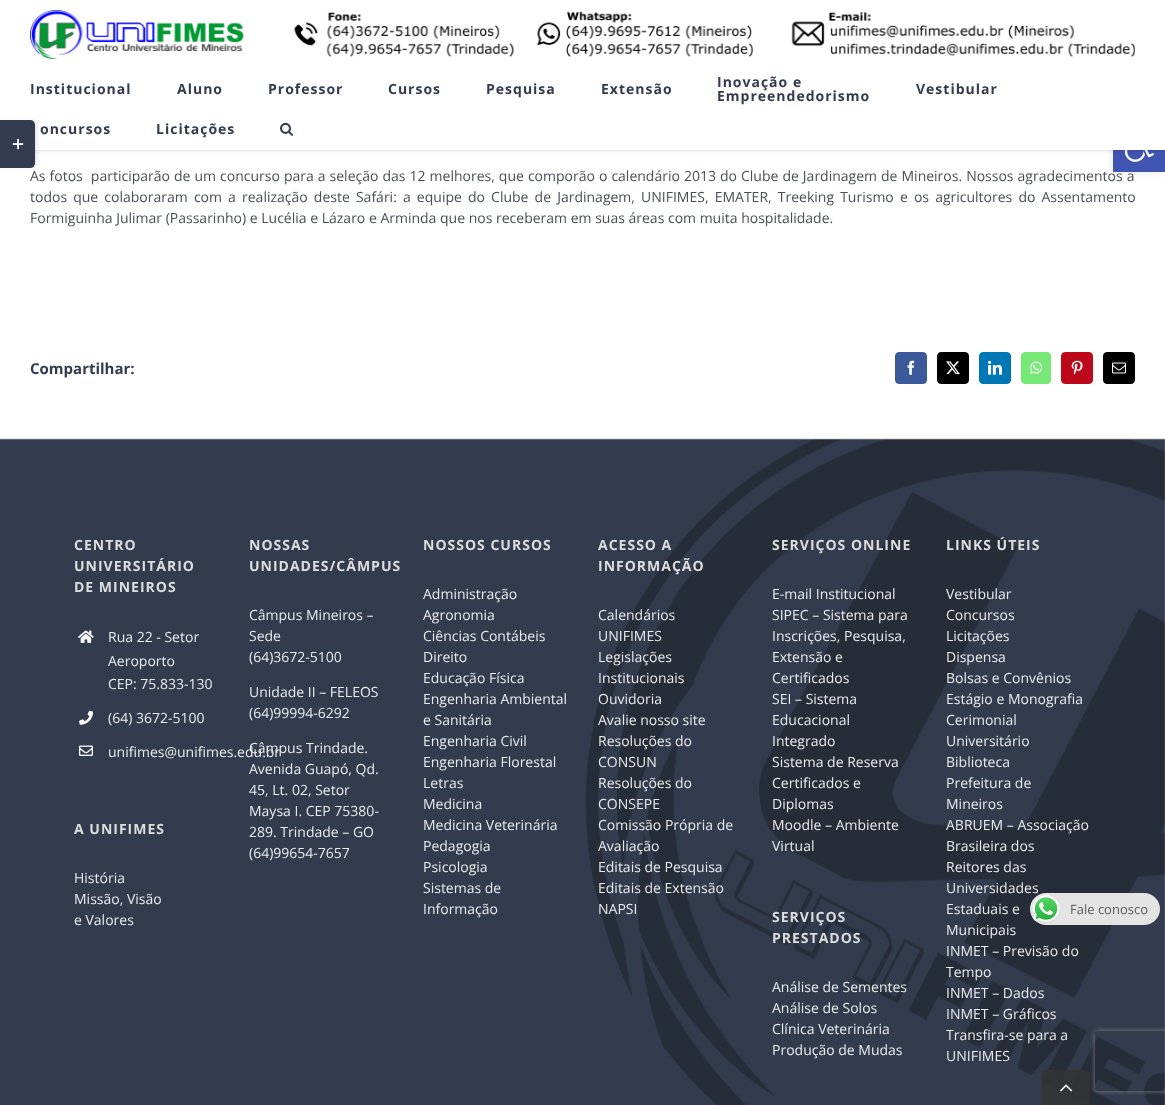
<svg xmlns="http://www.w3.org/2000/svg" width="1165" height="1105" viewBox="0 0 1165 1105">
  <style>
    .t1 { font: 14px Open Sans; fill: #4a4e57; }
    .t2 { font: bold 14px Open Sans; letter-spacing: 1px; fill: #333c4e; }
    .t3 { font: bold 15px Open Sans; fill: #333c4e; }
    .t4 { font: bold 14px Open Sans; letter-spacing: 1px; fill: #ddd; }
    .t5 { font: 14px Open Sans; fill: #eaeaea; }
    .t6 { font: 13px Open Sans; fill: #5b5b5b; }
  </style>
  <defs>
    <clipPath id="clip1"><path d="M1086 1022H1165V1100H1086ZM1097 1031H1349C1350 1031 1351 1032 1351 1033V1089C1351 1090 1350 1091 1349 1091H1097C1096 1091 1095 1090 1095 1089V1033C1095 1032 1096 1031 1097 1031Z" clip-rule="evenodd"/></clipPath>
  </defs>
  <rect width="100%" height="100%" fill="#fff"/>
  <text x="30" y="181" word-spacing="0.4" class="t1" xml:space="preserve">As fotos  participarão de um concurso para a seleção das 12 melhores, que comporão o calendário 2013 do Clube de Jardinagem de Mineiros. Nossos agradecimentos a</text>
  <rect x="1113" y="120" width="52" height="52" fill="#0000001a" filter="blur(5px)"/>
  <rect x="1113" y="150" width="52" height="22" fill="#4054b2"/>
  <image x="1124" y="150" width="30" height="12" href="images/14.png"/>
  <rect x="0" y="1" width="1165" height="150" fill="#0000001f" filter="blur(1.5px)"/>
  <rect x="0" y="0" width="1165" height="150" fill="#fff"/>
  <rect x="5" y="122" width="31" height="44" rx="3" fill="#00000024" filter="blur(2.5px)"/>
  <path d="M0 120H30C33 120 35 122 35 125V163C35 166 33 168 30 168H0Z" fill="#333c4e"/>
  <image x="12" y="138" width="12" height="12" href="images/1.png"/>
  <image x="30" y="10" width="1105" height="49" href="images/2.png"/>
  <text x="30" y="94" class="t2">Institucional</text>
  <text x="177" y="94" class="t2">Aluno</text>
  <text x="268" y="94" class="t2">Professor</text>
  <text x="388" y="94" class="t2">Cursos</text>
  <text x="486" y="94" class="t2">Pesquisa</text>
  <text x="601" y="94" class="t2">Extensão</text>
  <text x="717" y="87" class="t2">Inovação e</text>
  <text x="717" y="101" class="t2">Empreendedorismo</text>
  <text x="916" y="94" class="t2">Vestibular</text>
  <text x="40" y="134" class="t2">oncursos</text>
  <text x="156" y="134" class="t2">Licitações</text>
  <image x="280" y="122" width="13" height="14" href="images/3.png"/>
  <text x="30" y="202" word-spacing="2.5" class="t1">todos que colaboraram com a realização deste Safári: a equipe do Clube de Jardinagem, UNIFIMES, EMATER, Treeking Turismo e os agricultores do Assentamento</text>
  <text x="30" y="223" class="t1">Formiguinha Julimar (Passarinho) e Lucélia e Lázaro e Arminda que nos receberam em suas áreas com muita hospitalidade.</text>
  <text x="30" y="374" class="t3">Compartilhar:</text>
  <rect x="895.5" y="352.5" width="31" height="31" rx="3.5" fill="#3b5998" stroke="#3b5998"/>
  <image x="907" y="360" width="8" height="15" href="images/4.png"/>
  <rect x="937.5" y="352.5" width="31" height="31" rx="3.5" fill="#000" stroke="#000"/>
  <image x="946" y="361" width="14" height="14" href="images/5.png"/>
  <rect x="979.5" y="352.5" width="31" height="31" rx="3.5" fill="#0077b5" stroke="#0077b5"/>
  <image x="988" y="360" width="14" height="15" href="images/6.png"/>
  <rect x="1021.5" y="352.5" width="29" height="31" rx="3.5" fill="#77e878" stroke="#77e878"/>
  <image x="1030" y="361" width="12" height="13" href="images/7.png"/>
  <rect x="1061.5" y="352.5" width="31" height="31" rx="3.5" fill="#bd081c" stroke="#bd081c"/>
  <image x="1071" y="360" width="12" height="15" href="images/8.png"/>
  <rect x="1103.5" y="352.5" width="31" height="31" rx="3.5" fill="#000" stroke="#000"/>
  <image x="1112" y="362" width="14" height="12" href="images/9.png"/>
  <image x="0" y="439" width="1165" height="666" href="images/10.png"/>
  <rect x="0" y="438" width="1165" height="1" fill="#e7e4e2"/>
  <text x="74" y="550" class="t4">CENTRO</text>
  <text x="74" y="571" class="t4">UNIVERSITÁRIO</text>
  <text x="74" y="592" class="t4">DE MINEIROS</text>
  <image x="78" y="630" width="16" height="13" href="images/11.png"/>
  <text x="108" y="642" class="t5">Rua 22 - Setor</text>
  <text x="108" y="666" class="t5">Aeroporto</text>
  <text x="108" y="689" class="t5">CEP: 75.833-130</text>
  <image x="79" y="710" width="14" height="15" href="images/12.png"/>
  <text x="108" y="723" class="t5">(64) 3672-5100</text>
  <image x="79" y="745" width="14" height="11" href="images/13.png"/>
  <text x="108" y="757" class="t5">unifimes@unifimes.edu.br</text>
  <text x="74" y="834" class="t4">A UNIFIMES</text>
  <text x="74" y="883" class="t5">História</text>
  <text x="74" y="904" class="t5">Missão, Visão</text>
  <text x="74" y="925" class="t5">e Valores</text>
  <text x="249" y="550" class="t4">NOSSAS</text>
  <text x="249" y="571" class="t4">UNIDADES/CÂMPUS</text>
  <text x="249" y="620" class="t5">Câmpus Mineiros –</text>
  <text x="249" y="641" class="t5">Sede</text>
  <text x="249" y="662" class="t5">(64)3672-5100</text>
  <text x="249" y="697" class="t5">Unidade II – FELEOS</text>
  <text x="249" y="718" class="t5">(64)99994-6292</text>
  <text x="249" y="753" class="t5">Câmpus Trindade.</text>
  <text x="249" y="774" class="t5">Avenida Guapó, Qd.</text>
  <text x="249" y="795" class="t5">45, Lt. 02, Setor</text>
  <text x="249" y="816" class="t5">Maysa I. CEP 75380-</text>
  <text x="249" y="837" class="t5">289. Trindade – GO</text>
  <text x="249" y="858" class="t5">(64)99654-7657</text>
  <text x="423" y="550" class="t4">NOSSOS CURSOS</text>
  <text x="423" y="599" class="t5">Administração</text>
  <text x="423" y="620" class="t5">Agronomia</text>
  <text x="423" y="641" class="t5">Ciências Contábeis</text>
  <text x="423" y="662" class="t5">Direito</text>
  <text x="423" y="683" class="t5">Educação Física</text>
  <text x="423" y="704" class="t5">Engenharia Ambiental</text>
  <text x="423" y="725" class="t5">e Sanitária</text>
  <text x="423" y="746" class="t5">Engenharia Civil</text>
  <text x="423" y="767" class="t5">Engenharia Florestal</text>
  <text x="423" y="788" class="t5">Letras</text>
  <text x="423" y="809" class="t5">Medicina</text>
  <text x="423" y="830" class="t5">Medicina Veterinária</text>
  <text x="423" y="851" class="t5">Pedagogia</text>
  <text x="423" y="872" class="t5">Psicologia</text>
  <text x="423" y="893" class="t5">Sistemas de</text>
  <text x="423" y="914" class="t5">Informação</text>
  <text x="598" y="550" class="t4">ACESSO A</text>
  <text x="598" y="571" class="t4">INFORMAÇÃO</text>
  <text x="598" y="620" class="t5">Calendários</text>
  <text x="598" y="641" class="t5">UNIFIMES</text>
  <text x="598" y="662" class="t5">Legislações</text>
  <text x="598" y="683" class="t5">Institucionais</text>
  <text x="598" y="704" class="t5">Ouvidoria</text>
  <text x="598" y="725" class="t5">Avalie nosso site</text>
  <text x="598" y="746" class="t5">Resoluções do</text>
  <text x="598" y="767" class="t5">CONSUN</text>
  <text x="598" y="788" class="t5">Resoluções do</text>
  <text x="598" y="809" class="t5">CONSEPE</text>
  <text x="598" y="830" class="t5">Comissão Própria de</text>
  <text x="598" y="851" class="t5">Avaliação</text>
  <text x="598" y="872" class="t5">Editais de Pesquisa</text>
  <text x="598" y="893" class="t5">Editais de Extensão</text>
  <text x="598" y="914" class="t5">NAPSI</text>
  <text x="772" y="550" class="t4">SERVIÇOS ONLINE</text>
  <text x="772" y="599" class="t5">E-mail Institucional</text>
  <text x="772" y="620" class="t5">SIPEC – Sistema para</text>
  <text x="772" y="641" class="t5">Inscrições, Pesquisa,</text>
  <text x="772" y="662" class="t5">Extensão e</text>
  <text x="772" y="683" class="t5">Certificados</text>
  <text x="772" y="704" class="t5">SEI – Sistema</text>
  <text x="772" y="725" class="t5">Educacional</text>
  <text x="772" y="746" class="t5">Integrado</text>
  <text x="772" y="767" class="t5">Sistema de Reserva</text>
  <text x="772" y="788" class="t5">Certificados e</text>
  <text x="772" y="809" class="t5">Diplomas</text>
  <text x="772" y="830" class="t5">Moodle – Ambiente</text>
  <text x="772" y="851" class="t5">Virtual</text>
  <text x="772" y="922" class="t4">SERVIÇOS</text>
  <text x="772" y="943" class="t4">PRESTADOS</text>
  <text x="772" y="992" class="t5">Análise de Sementes</text>
  <text x="772" y="1013" class="t5">Análise de Solos</text>
  <text x="772" y="1034" class="t5">Clínica Veterinária</text>
  <text x="772" y="1055" class="t5">Produção de Mudas</text>
  <text x="946" y="550" class="t4">LINKS ÚTEIS</text>
  <text x="946" y="599" class="t5">Vestibular</text>
  <text x="946" y="620" class="t5">Concursos</text>
  <text x="946" y="641" class="t5">Licitações</text>
  <text x="946" y="662" class="t5">Dispensa</text>
  <text x="946" y="683" class="t5">Bolsas e Convênios</text>
  <text x="946" y="704" class="t5">Estágio e Monografia</text>
  <text x="946" y="725" class="t5">Cerimonial</text>
  <text x="946" y="746" class="t5">Universitário</text>
  <text x="946" y="767" class="t5">Biblioteca</text>
  <text x="946" y="788" class="t5">Prefeitura de</text>
  <text x="946" y="809" class="t5">Mineiros</text>
  <text x="946" y="830" class="t5">ABRUEM – Associação</text>
  <text x="946" y="851" class="t5">Brasileira dos</text>
  <text x="946" y="872" class="t5">Reitores das</text>
  <text x="946" y="893" class="t5">Universidades</text>
  <text x="946" y="914" class="t5">Estaduais e</text>
  <text x="946" y="935" class="t5">Municipais</text>
  <text x="946" y="956" class="t5">INMET – Previsão do</text>
  <text x="946" y="977" class="t5">Tempo</text>
  <text x="946" y="998" class="t5">INMET – Dados</text>
  <text x="946" y="1019" class="t5">INMET – Gráficos</text>
  <text x="946" y="1040" class="t5">Transfira-se para a</text>
  <text x="946" y="1061" class="t5">UNIFIMES</text>
  <rect x="1030" y="893" width="130" height="32" rx="16" fill="#e4e4e4"/>
  <image x="1032" y="895" width="28" height="28" href="images/15.png"/>
  <text x="1070" y="914" class="t6">Fale conosco</text>
  <g clip-path="url(#clip1)">
    <rect x="1095" y="1031" width="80" height="60" rx="2" fill="#808080" filter="blur(2.5px)"/>
  </g>
  <path d="M1046 1070H1086C1088 1070 1090 1072 1090 1074V1105H1042V1074C1042 1072 1044 1070 1046 1070Z" fill="#333333e6"/>
  <image x="1060" y="1084" width="13" height="8" href="images/16.png"/>
</svg>
